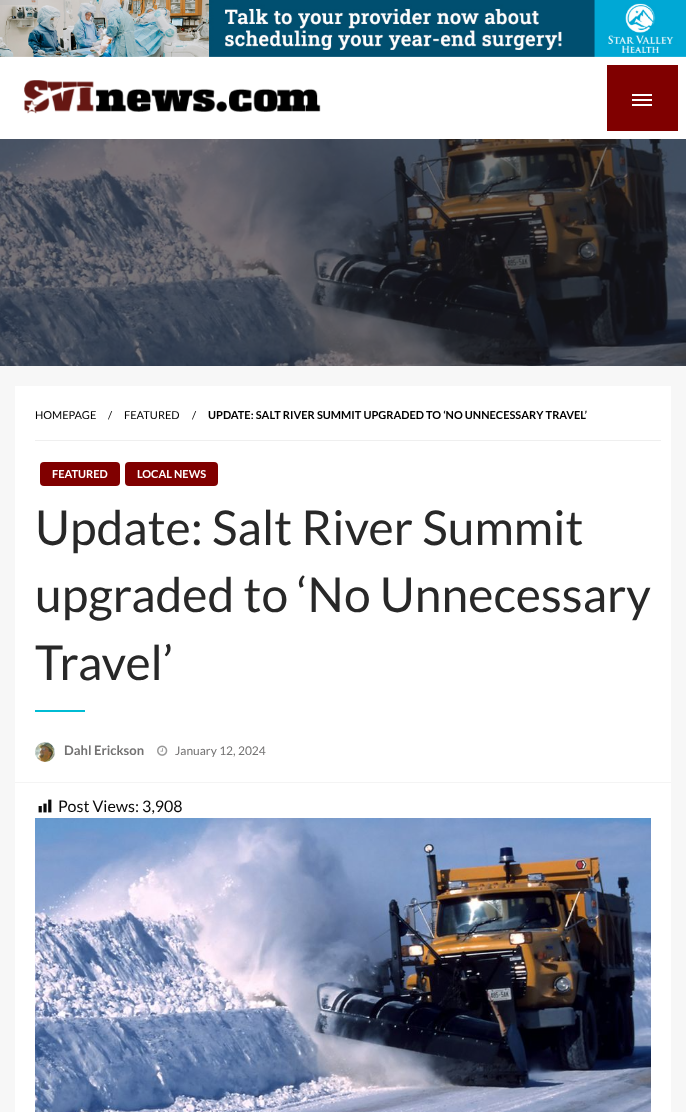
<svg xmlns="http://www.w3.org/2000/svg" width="686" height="1112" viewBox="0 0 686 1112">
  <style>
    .t1 { font: 11px Lato; fill: #000; }
    .t2 { font: bold 11px Lato; fill: #000; }
    .t3 { font: bold 11px Lato; fill: #fff; }
    .t4 { font: 48px Lato; fill: #282828; }
    .t5 { font: bold 13px Lato; fill: #737272; }
    .t6 { font: 12px Lato; fill: #737272; }
    .t7 { font: 16px Lato; fill: #0a0a0a; }
  </style>
  <rect width="100%" height="100%" fill="#f7f7f7"/>
  <image x="0" y="0" width="686" height="57" href="images/1.png"/>
  <rect x="0" y="0" width="38" height="5" fill="#bbbbbb80"/>
  <rect x="0" y="57" width="686" height="82" fill="#fff"/>
  <image x="24" y="80" width="297" height="34" href="images/2.png"/>
  <rect x="607" y="65" width="71" height="66" fill="#800000"/>
  <rect x="632" y="94" width="20" height="2" fill="#fff"/>
  <rect x="632" y="99" width="20" height="2" fill="#fff"/>
  <rect x="632" y="104" width="20" height="2" fill="#fff"/>
  <image x="0" y="139" width="686" height="227" href="images/3.png"/>
  <rect x="15" y="386" width="656" height="396" fill="#fff"/>
  <rect x="15" y="782" width="656" height="1" fill="#f4f4f4"/>
  <rect x="35" y="440" width="626" height="1" fill="#efefef"/>
  <text x="35" y="419" class="t1">HOMEPAGE</text>
  <text x="108" y="419" class="t1">/</text>
  <text x="124" y="419" class="t1">FEATURED</text>
  <text x="192" y="419" class="t1">/</text>
  <text x="208" y="419" class="t2">UPDATE: SALT RIVER SUMMIT UPGRADED TO ‘NO UNNECESSARY TRAVEL’</text>
  <rect x="40" y="462" width="80" height="24" rx="4" fill="#800000"/>
  <text x="52" y="478" class="t3">FEATURED</text>
  <rect x="125" y="462" width="93" height="24" rx="4" fill="#800000"/>
  <text x="137" y="478" class="t3">LOCAL NEWS</text>
  <text x="35" y="545" class="t4">Update: Salt River Summit</text>
  <text x="35" y="612" class="t4">upgraded to ‘No Unnecessary</text>
  <text x="35" y="680" class="t4">Travel’</text>
  <rect x="35" y="710" width="50" height="2" fill="#00bcd4"/>
  <image x="35" y="742" width="20" height="20" href="images/4.png"/>
  <text x="64" y="755" class="t5">Dahl Erickson</text>
  <image x="157" y="745" width="11" height="11" href="images/5.png"/>
  <text x="175" y="755" class="t6">January 12, 2024</text>
  <rect x="15" y="783" width="656" height="329" fill="#fff"/>
  <image x="38" y="799" width="14" height="14" href="images/6.png"/>
  <text x="58" y="812" class="t7">Post Views: 3,908</text>
  <image x="35" y="818" width="616" height="294" href="images/7.png"/>
</svg>
